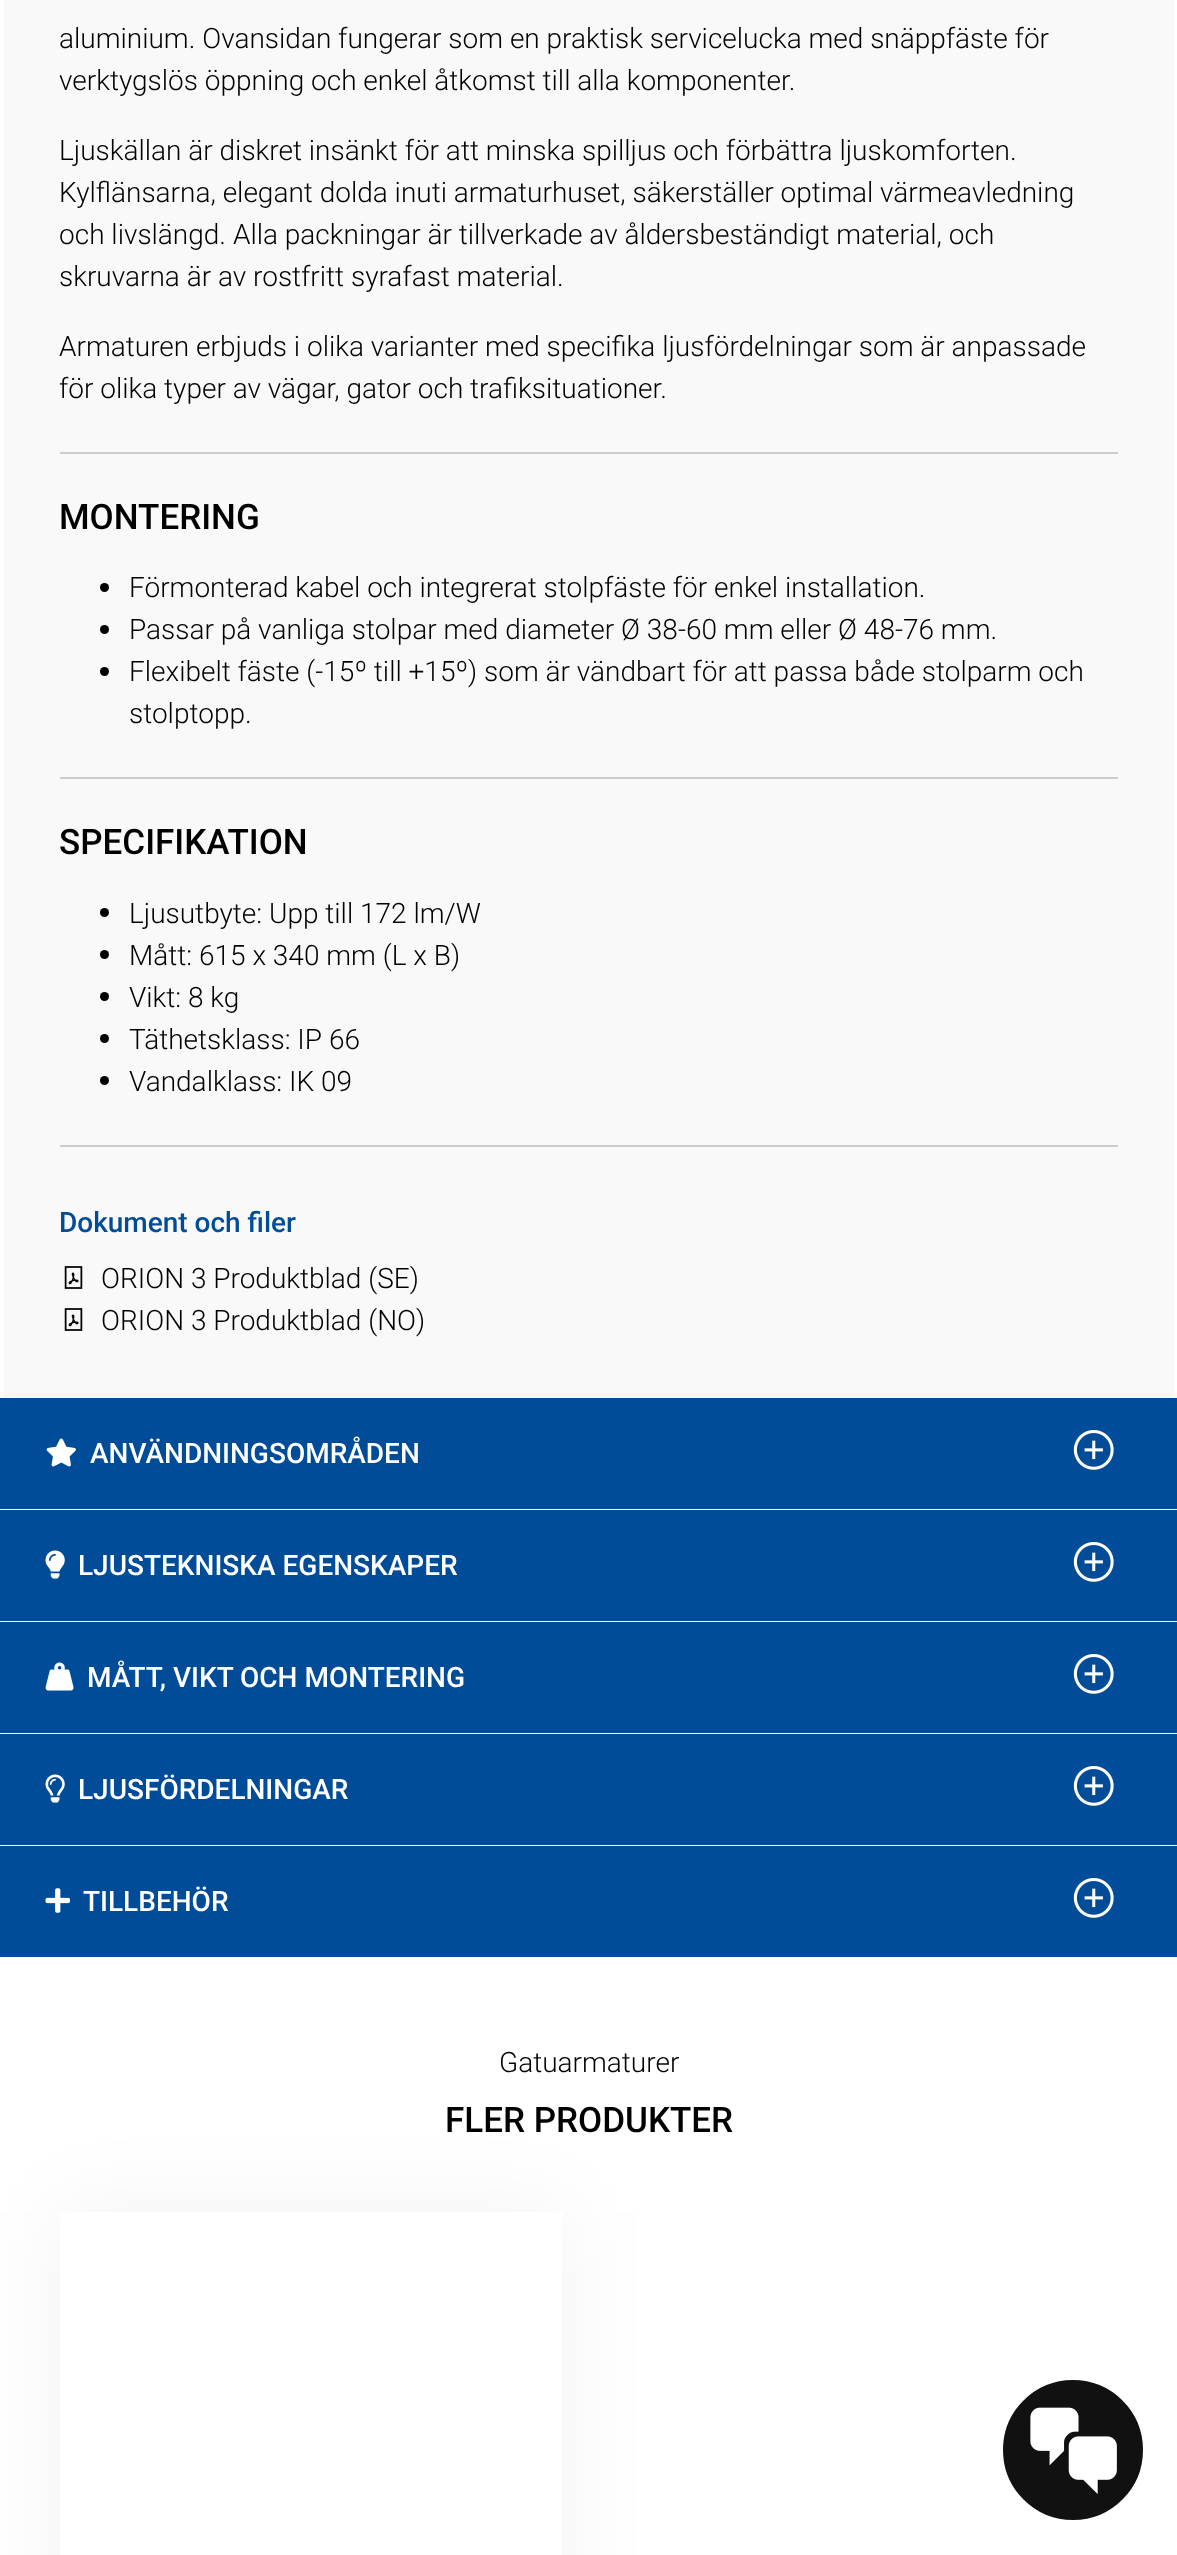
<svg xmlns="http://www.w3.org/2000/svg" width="1177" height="2555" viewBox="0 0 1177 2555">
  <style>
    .t1 { font: 300 28px Roboto; fill: #000; }
    .t2 { font: 500 35px Roboto; fill: #000; }
    .t3 { font: 500 28px Roboto; fill: #004c99; }
    .t4 { font: 500 28px Roboto; fill: #fff; }
  </style>
  <rect width="100%" height="100%" fill="#fff"/>
  <rect x="4" y="0" width="1170" height="1398" fill="#f9f9f9"/>
  <text x="59" y="48" class="t1">aluminium. Ovansidan fungerar som en praktisk servicelucka med snäppfäste för</text>
  <text x="59" y="90" class="t1">verktygslös öppning och enkel åtkomst till alla komponenter.</text>
  <text x="59" y="160" class="t1">Ljuskällan är diskret insänkt för att minska spilljus och förbättra ljuskomforten.</text>
  <text x="59" y="202" class="t1">Kylflänsarna, elegant dolda inuti armaturhuset, säkerställer optimal värmeavledning</text>
  <text x="59" y="244" class="t1">och livslängd. Alla packningar är tillverkade av åldersbeständigt material, och</text>
  <text x="59" y="286" class="t1">skruvarna är av rostfritt syrafast material.</text>
  <text x="59" y="356" class="t1">Armaturen erbjuds i olika varianter med specifika ljusfördelningar som är anpassade</text>
  <text x="59" y="398" class="t1">för olika typer av vägar, gator och trafiksituationer.</text>
  <rect x="60" y="452" width="1058" height="2" fill="#ccc"/>
  <text x="59" y="529" class="t2">MONTERING</text>
  <circle cx="104.5" cy="587.5" r="4.5" fill="#000"/>
  <text x="129" y="597" class="t1">Förmonterad kabel och integrerat stolpfäste för enkel installation.</text>
  <circle cx="104.5" cy="629.5" r="4.5" fill="#000"/>
  <text x="129" y="639" class="t1">Passar på vanliga stolpar med diameter Ø 38-60 mm eller Ø 48-76 mm.</text>
  <circle cx="104.5" cy="671.5" r="4.5" fill="#000"/>
  <text x="129" y="681" class="t1">Flexibelt fäste (-15º till +15º) som är vändbart för att passa både stolparm och</text>
  <text x="129" y="723" class="t1">stolptopp.</text>
  <rect x="60" y="777" width="1058" height="2" fill="#ccc"/>
  <text x="59" y="854" class="t2">SPECIFIKATION</text>
  <circle cx="104.5" cy="912.5" r="4.5" fill="#000"/>
  <text x="129" y="923" class="t1">Ljusutbyte: Upp till 172 lm/W</text>
  <circle cx="104.5" cy="954.5" r="4.5" fill="#000"/>
  <text x="129" y="965" class="t1">Mått: 615 x 340 mm (L x B)</text>
  <circle cx="104.5" cy="996.5" r="4.5" fill="#000"/>
  <text x="129" y="1007" class="t1">Vikt: 8 kg</text>
  <circle cx="104.5" cy="1038.5" r="4.5" fill="#000"/>
  <text x="129" y="1049" class="t1">Täthetsklass: IP 66</text>
  <circle cx="104.5" cy="1080.5" r="4.5" fill="#000"/>
  <text x="129" y="1091" class="t1">Vandalklass: IK 09</text>
  <rect x="60" y="1145" width="1058" height="2" fill="#ccc"/>
  <text x="59" y="1232" class="t3">Dokument och filer</text>
  <image x="64" y="1266" width="19" height="23" href="images/1.png"/>
  <text x="101" y="1288" class="t1">ORION 3 Produktblad (SE)</text>
  <image x="64" y="1308" width="19" height="23" href="images/1.png"/>
  <text x="101" y="1330" class="t1">ORION 3 Produktblad (NO)</text>
  <rect x="0" y="1398" width="1177" height="111" fill="#004c99"/>
  <image x="46" y="1438" width="30" height="29" href="images/2.png"/>
  <text x="90" y="1463" class="t4">ANVÄNDNINGSOMRÅDEN</text>
  <image x="1073" y="1430" width="41" height="40" href="images/3.png"/>
  <rect x="0" y="1510" width="1177" height="111" fill="#004c99"/>
  <image x="45" y="1550" width="20" height="29" href="images/4.png"/>
  <text x="78" y="1575" class="t4">LJUSTEKNISKA EGENSKAPER</text>
  <image x="1073" y="1542" width="41" height="40" href="images/3.png"/>
  <rect x="0" y="1622" width="1177" height="111" fill="#004c99"/>
  <image x="45" y="1662" width="29" height="29" href="images/5.png"/>
  <text x="87" y="1687" class="t4">MÅTT, VIKT OCH MONTERING</text>
  <image x="1073" y="1654" width="41" height="40" href="images/3.png"/>
  <rect x="0" y="1734" width="1177" height="111" fill="#004c99"/>
  <image x="45" y="1774" width="20" height="29" href="images/6.png"/>
  <text x="78" y="1799" class="t4">LJUSFÖRDELNINGAR</text>
  <image x="1073" y="1766" width="41" height="40" href="images/3.png"/>
  <rect x="0" y="1846" width="1177" height="111" fill="#004c99"/>
  <image x="45" y="1888" width="25" height="25" href="images/7.png"/>
  <text x="83" y="1911" class="t4">TILLBEHÖR</text>
  <image x="1073" y="1878" width="41" height="40" href="images/3.png"/>
  <text x="499" y="2072" class="t1">Gatuarmaturer</text>
  <rect x="60" y="2212" width="502" height="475" fill="#0000000d" filter="blur(44px)"/>
  <rect x="60" y="2212" width="502" height="343" fill="#fff"/>
  <text x="445" y="2132" class="t2">FLER PRODUKTER</text>
  <circle cx="1073" cy="2450" r="67.5" fill="#111" stroke="#111" stroke-width="5"/>
  <image x="1030" y="2407" width="87" height="87" href="images/8.png"/>
</svg>
